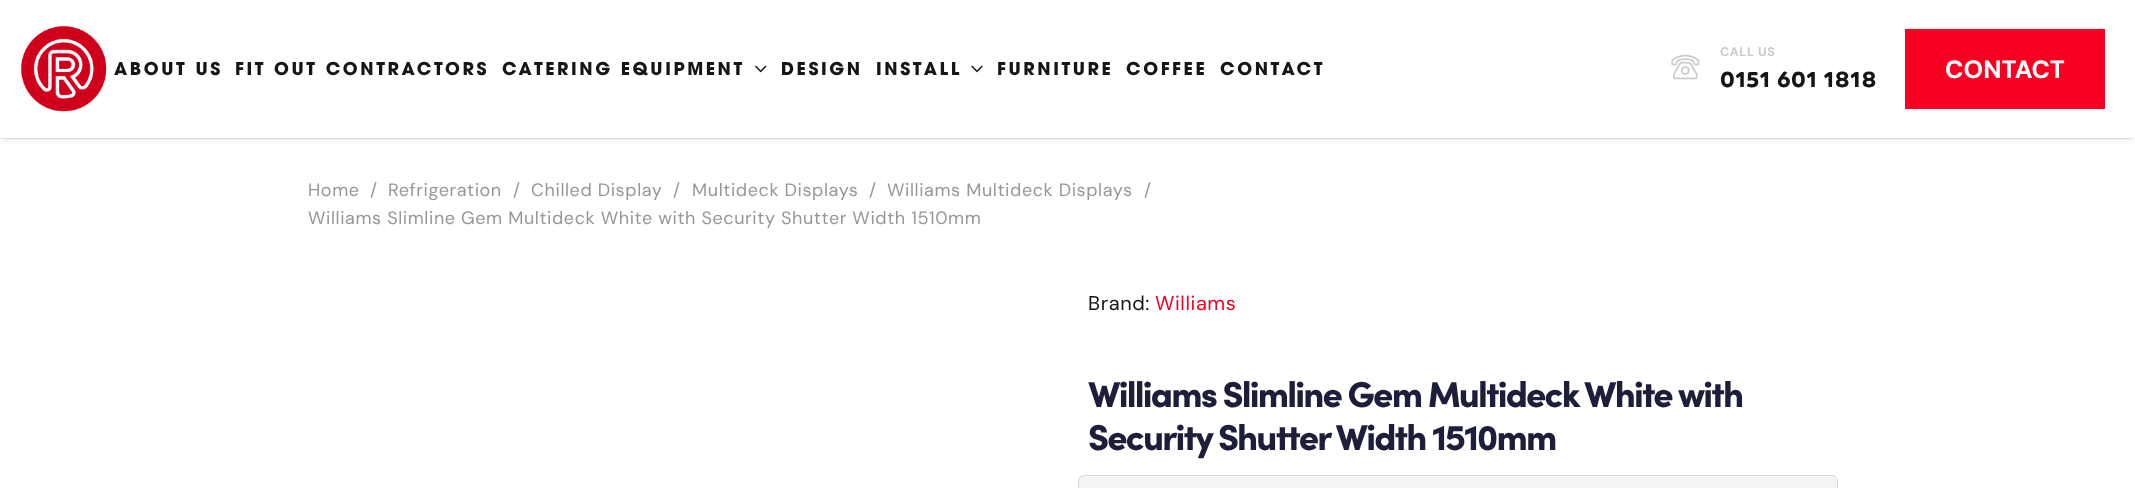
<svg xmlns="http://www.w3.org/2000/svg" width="2135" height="488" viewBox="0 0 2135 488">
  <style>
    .t1 { font: bold 17.5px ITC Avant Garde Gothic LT; letter-spacing: 2.6px; fill: #161616; }
    .t2 { font: 800 12.5px DM Sans; letter-spacing: 0.6px; fill: #cbcbcb; }
    .t3 { font: bold 22px 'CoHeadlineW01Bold'; letter-spacing: 0.6px; fill: #161616; }
    .t4 { font: 800 25px DM Sans; fill: #fff; }
    .t5 { font: 18px DM Sans; letter-spacing: 0.6px; fill: #949799; }
    .t6 { font: 20px DM Sans; letter-spacing: 0.6px; fill: #161616; }
    .t7 { font: 20px DM Sans; letter-spacing: 0.6px; fill: #f70021; }
    .t8 { font: 900 36px Sofia; letter-spacing: -1.8px; fill: #1d1e3a; }
  </style>
  <rect width="100%" height="100%" fill="#fff"/>
  <rect x="1" y="4" width="2133" height="135" fill="#0000000d" filter="blur(0.5px)"/>
  <rect x="1" y="5" width="2133" height="135" fill="#0000001a" filter="blur(3px)"/>
  <rect x="0" y="1" width="2135" height="137" fill="#fff"/>
  <image x="20" y="25" width="87" height="87" href="images/1.png"/>
  <text x="114" y="75" class="t1">ABOUT US</text>
  <text x="235" y="75" class="t1">FIT OUT CONTRACTORS</text>
  <text x="502" y="75" class="t1">CATERING EQUIPMENT</text>
  <image x="755" y="65" width="12" height="8" href="images/2.png"/>
  <text x="781" y="75" class="t1">DESIGN</text>
  <text x="876" y="75" class="t1">INSTALL</text>
  <image x="971" y="65" width="12" height="8" href="images/3.png"/>
  <text x="997" y="75" class="t1">FURNITURE</text>
  <text x="1126" y="75" class="t1">COFFEE</text>
  <text x="1220" y="75" class="t1">CONTACT</text>
  <image x="1671" y="54" width="29" height="26" href="images/4.png"/>
  <text x="1720" y="56" class="t2">CALL US</text>
  <text x="1720" y="87" class="t3">0151 601 1818</text>
  <rect x="1905" y="29" width="200" height="80" fill="#f70021"/>
  <text x="1945" y="78" class="t4">CONTACT</text>
  <text x="308" y="196" class="t5">Home</text>
  <text x="370" y="196" class="t5">/</text>
  <text x="388" y="196" class="t5">Refrigeration</text>
  <text x="513" y="196" class="t5">/</text>
  <text x="531" y="196" class="t5">Chilled Display</text>
  <text x="673" y="196" class="t5">/</text>
  <text x="692" y="196" class="t5">Multideck Displays</text>
  <text x="869" y="196" class="t5">/</text>
  <text x="887" y="196" class="t5">Williams Multideck Displays</text>
  <text x="1144" y="196" class="t5">/</text>
  <text x="308" y="224" class="t5">Williams Slimline Gem Multideck White with Security Shutter Width 1510mm</text>
  <text x="1088" y="310" class="t6">Brand:</text>
  <text x="1155" y="310" class="t7">Williams</text>
  <text x="1088" y="407" class="t8">Williams Slimline Gem Multideck White with</text>
  <text x="1088" y="450" class="t8">Security Shutter Width 1510mm</text>
  <rect x="1078.5" y="475.5" width="759" height="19" rx="5.5" fill="#f4f4f5" stroke="#d6d6db"/>
</svg>
